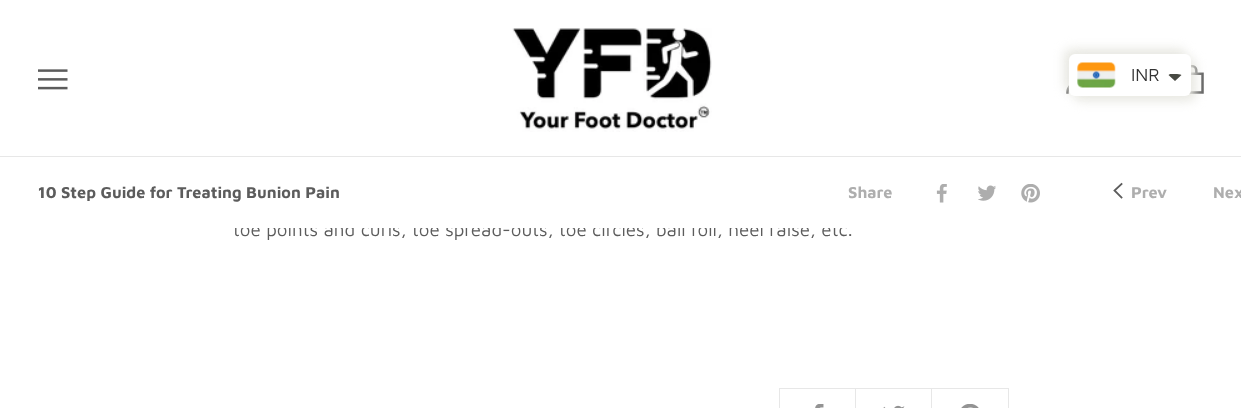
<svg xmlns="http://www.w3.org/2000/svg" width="1241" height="408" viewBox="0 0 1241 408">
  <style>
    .t1 { font: 18px Maven Pro; fill: #333; }
    .t2 { font: 18.75px Maven Pro; fill: #5c5c5c; }
    .t3 { font: bold 16.25px Maven Pro; fill: #5c5c5c; }
    .t4 { font: bold 16.25px Maven Pro; fill: #aeaeae; }
  </style>
  <rect width="100%" height="100%" fill="#fff"/>
  <path d="M1067.5 92.5C1067.5 79 1090 79 1090 92.5" fill="none" stroke="#5c5c5c" stroke-width="2.5" stroke-linecap="square"/>
  <image x="1189" y="65" width="15" height="29" href="images/4.png"/>
  <rect x="1064" y="49" width="122" height="42" rx="6" fill="#e8e8e2" filter="blur(5.5px)"/>
  <rect x="1074" y="59" width="122" height="42" rx="6" fill="#e8e8e2" filter="blur(5.5px)"/>
  <rect x="1069" y="54" width="122" height="42" rx="6" fill="#fff"/>
  <image x="1077" y="62" width="39" height="26" href="images/1.png"/>
  <text x="1131" y="81" class="t1">INR</text>
  <path d="M1171 74C1173.5 74 1179.5 73.5 1181.5 75L1175 81L1168.5 75C1169 74.5 1170 74 1171 74Z" fill="#474942"/>
  <rect x="0" y="156" width="1241" height="1" fill="#e7e7e7"/>
  <image x="38" y="69" width="30" height="21" href="images/2.png"/>
  <image x="512" y="28" width="200" height="104" href="images/3.png"/>
  <text x="233" y="236" class="t2">toe points and curls, toe spread-outs, toe circles, ball roll, heel raise, etc.</text>
  <rect x="233" y="222" width="614" height="6" fill="#fff"/>
  <text x="38" y="198" class="t3">10 Step Guide for Treating Bunion Pain</text>
  <text x="848" y="198" class="t4">Share</text>
  <image x="936" y="184" width="11" height="19" href="images/5.png"/>
  <image x="978" y="185" width="18" height="16" href="images/6.png"/>
  <image x="1021" y="184" width="19" height="19" href="images/7.png"/>
  <path d="M1121.5 184L1114.5 190.5L1121.5 197.5" fill="none" stroke="#5c5c5c" stroke-width="1.8" stroke-linecap="square"/>
  <text x="1131" y="198" class="t4">Prev</text>
  <text x="1213" y="198" class="t4">Nex</text>
  <rect x="931" y="388" width="78" height="1" fill="#e7e7e7"/>
  <rect x="931" y="388" width="1" height="20" fill="#e7e7e7"/>
  <rect x="855" y="388" width="78" height="1" fill="#e7e7e7"/>
  <rect x="855" y="388" width="1" height="20" fill="#e7e7e7"/>
  <rect x="779" y="388" width="77" height="1" fill="#e7e7e7"/>
  <rect x="779" y="388" width="1" height="20" fill="#e7e7e7"/>
  <image x="815" y="404" width="9" height="4" href="images/8.png"/>
  <image x="883" y="405" width="22" height="3" href="images/9.png"/>
  <rect x="1008" y="388" width="1" height="20" fill="#e7e7e7"/>
  <image x="961" y="404" width="18" height="4" href="images/10.png"/>
</svg>
